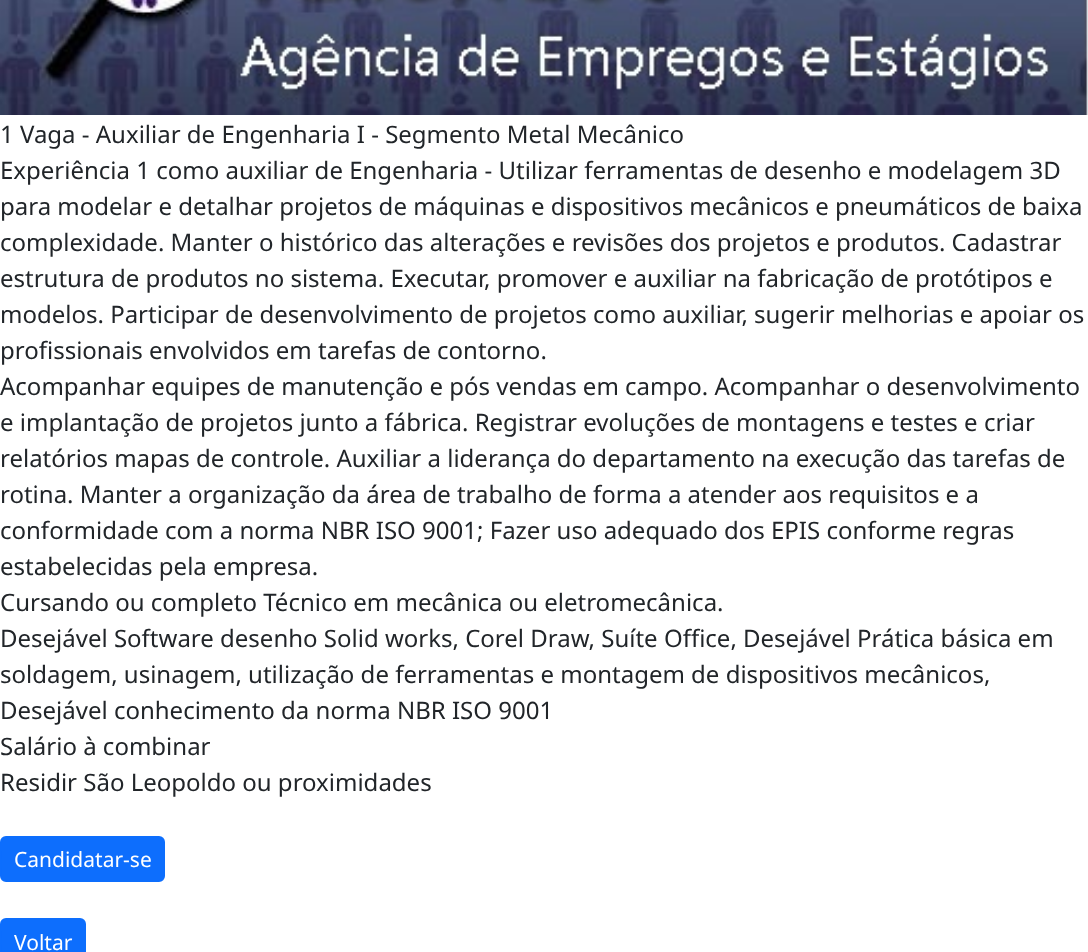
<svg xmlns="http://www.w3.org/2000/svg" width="1088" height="952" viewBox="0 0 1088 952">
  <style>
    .t1 { font: 24px Noto Sans; fill: #212529; }
    .t2 { font: 21px Noto Sans; fill: #fff; }
  </style>
  <rect width="100%" height="100%" fill="#fff"/>
  <image x="0" y="0" width="1088" height="115" href="images/1.png"/>
  <text x="0" y="143" class="t1">1 Vaga - Auxiliar de Engenharia I - Segmento Metal Mecânico</text>
  <text x="0" y="179" class="t1">Experiência 1 como auxiliar de Engenharia - Utilizar ferramentas de desenho e modelagem 3D</text>
  <text x="0" y="215" class="t1">para modelar e detalhar projetos de máquinas e dispositivos mecânicos e pneumáticos de baixa</text>
  <text x="0" y="251" class="t1">complexidade. Manter o histórico das alterações e revisões dos projetos e produtos. Cadastrar</text>
  <text x="0" y="287" class="t1">estrutura de produtos no sistema. Executar, promover e auxiliar na fabricação de protótipos e</text>
  <text x="0" y="323" class="t1">modelos. Participar de desenvolvimento de projetos como auxiliar, sugerir melhorias e apoiar os</text>
  <text x="0" y="359" class="t1">profissionais envolvidos em tarefas de contorno.</text>
  <text x="0" y="395" class="t1">Acompanhar equipes de manutenção e pós vendas em campo. Acompanhar o desenvolvimento</text>
  <text x="0" y="431" class="t1">e implantação de projetos junto a fábrica. Registrar evoluções de montagens e testes e criar</text>
  <text x="0" y="467" class="t1">relatórios mapas de controle. Auxiliar a liderança do departamento na execução das tarefas de</text>
  <text x="0" y="503" class="t1">rotina. Manter a organização da área de trabalho de forma a atender aos requisitos e a</text>
  <text x="0" y="539" class="t1">conformidade com a norma NBR ISO 9001; Fazer uso adequado dos EPIS conforme regras</text>
  <text x="0" y="575" class="t1">estabelecidas pela empresa.</text>
  <text x="0" y="611" class="t1">Cursando ou completo Técnico em mecânica ou eletromecânica.</text>
  <text x="0" y="647" class="t1">Desejável Software desenho Solid works, Corel Draw, Suíte Office, Desejável Prática básica em</text>
  <text x="0" y="683" class="t1">soldagem, usinagem, utilização de ferramentas e montagem de dispositivos mecânicos,</text>
  <text x="0" y="719" class="t1">Desejável conhecimento da norma NBR ISO 9001</text>
  <text x="0" y="755" class="t1">Salário à combinar</text>
  <text x="0" y="791" class="t1">Residir São Leopoldo ou proximidades</text>
  <rect x="1" y="837" width="163" height="44" rx="5" fill="#0d6efd" stroke="#0d6efd" stroke-width="2"/>
  <text x="14" y="867" class="t2">Candidatar-se</text>
  <rect x="1" y="919" width="84" height="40" rx="5" fill="#0d6efd" stroke="#0d6efd" stroke-width="2"/>
  <text x="14" y="950" class="t2">Voltar</text>
</svg>
